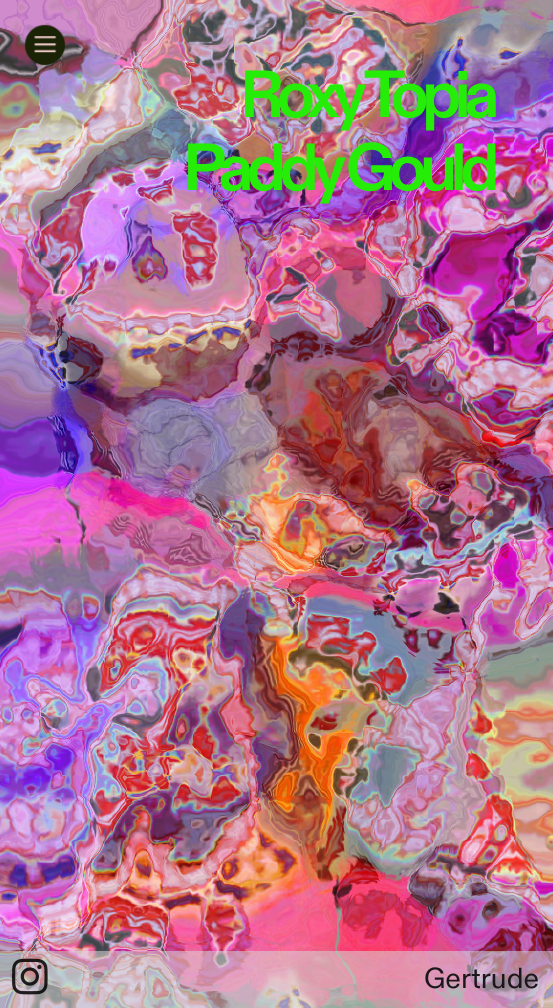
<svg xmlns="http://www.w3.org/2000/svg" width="553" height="1008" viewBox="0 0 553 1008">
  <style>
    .t1 { font: bold 66.5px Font; letter-spacing: -6.6px; fill: #26ed07; }
    .t2 { font: 29px Font; fill: #1d161a; }
  </style>
  <rect width="100%" height="100%" fill="#fff"/>
  <image x="0" y="0" width="553" height="1008" href="images/2.png"/>
  <image x="24" y="24" width="41" height="41" href="images/1.png"/>
  <text x="240" y="117" class="t1">Roxy Topia</text>
  <text x="183" y="190" class="t1">Paddy Gould</text>
  <rect x="0" y="951" width="553" height="57" fill="#d9d9d98a"/>
  <image x="12" y="958" width="36" height="37" href="images/3.png"/>
  <text x="424" y="988" class="t2">Gertrude</text>
</svg>
